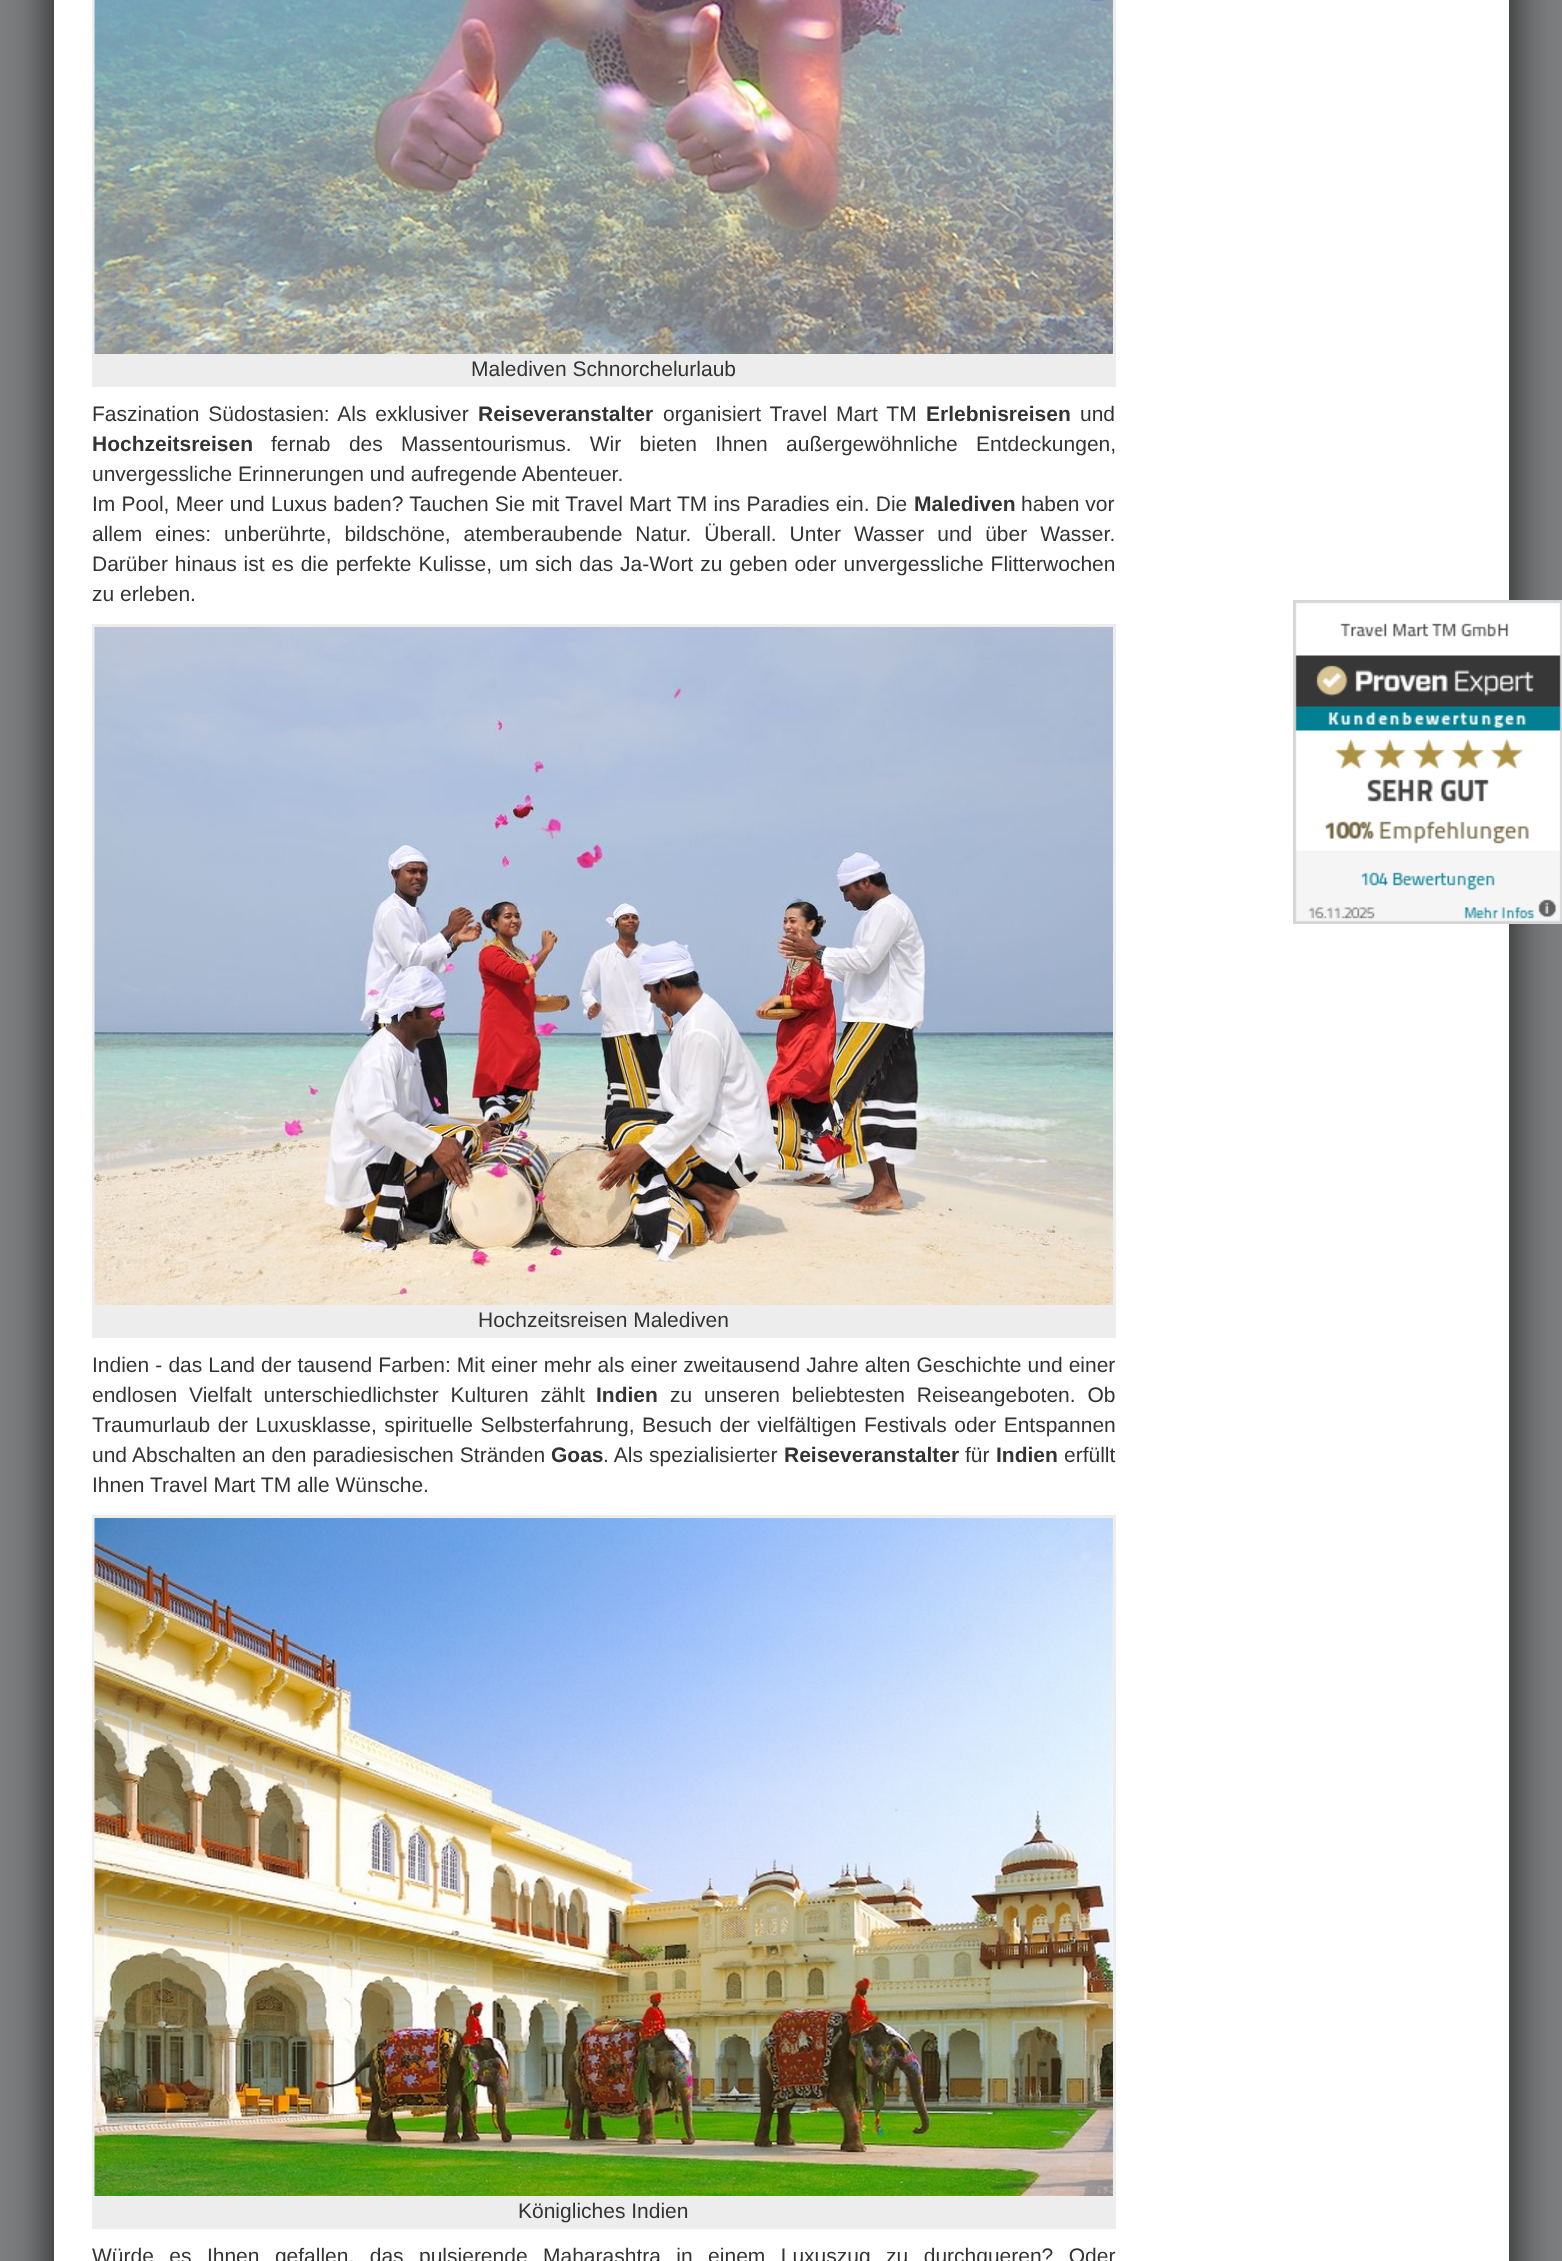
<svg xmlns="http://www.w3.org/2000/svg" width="1562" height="2261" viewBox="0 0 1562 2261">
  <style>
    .t1 { font: 21px Liberation Sans; fill: #333; }
    .t2 { font: bold 21px Liberation Sans; fill: #333; }
  </style>
  <rect width="100%" height="100%" fill="#7e7f80"/>
  <rect x="54" y="-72" width="1455" height="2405" fill="#111" filter="blur(24px)"/>
  <rect x="54" y="0" width="1455" height="2261" fill="#fff"/>
  <rect x="92" y="0" width="1024" height="387" fill="#ededed"/>
  <image x="94" y="0" width="1019" height="354" href="images/1.png"/>
  <text x="471" y="376" class="t1">Malediven Schnorchelurlaub</text>
  <text x="92" y="421" word-spacing="3" class="t1">Faszination Südostasien: Als exklusiver</text>
  <text x="478" y="421" class="t2">Reiseveranstalter</text>
  <text x="663" y="421" word-spacing="3" class="t1">organisiert Travel Mart TM</text>
  <text x="926" y="421" class="t2">Erlebnisreisen</text>
  <text x="1080" y="421" class="t1">und</text>
  <text x="92" y="451" class="t2">Hochzeitsreisen</text>
  <text x="271" y="451" word-spacing="12.5" class="t1">fernab des Massentourismus. Wir bieten Ihnen außergewöhnliche Entdeckungen,</text>
  <text x="92" y="481" class="t1">unvergessliche Erinnerungen und aufregende Abenteuer.</text>
  <text x="92" y="511" word-spacing="0.4" class="t1">Im Pool, Meer und Luxus baden? Tauchen Sie mit Travel Mart TM ins Paradies ein. Die</text>
  <text x="914" y="511" class="t2">Malediven</text>
  <text x="1021" y="511" class="t1">haben vor</text>
  <text x="92" y="541" word-spacing="7.1" class="t1">allem eines: unberührte, bildschöne, atemberaubende Natur. Überall. Unter Wasser und über Wasser.</text>
  <text x="92" y="571" word-spacing="1.1" class="t1">Darüber hinaus ist es die perfekte Kulisse, um sich das Ja-Wort zu geben oder unvergessliche Flitterwochen</text>
  <text x="92" y="601" class="t1">zu erleben.</text>
  <rect x="92" y="624" width="1024" height="714" fill="#ededed"/>
  <image x="94" y="627" width="1019" height="678" href="images/2.png"/>
  <text x="478" y="1327" class="t1">Hochzeitsreisen Malediven</text>
  <text x="92" y="1372" word-spacing="0.25" class="t1">Indien - das Land der tausend Farben: Mit einer mehr als einer zweitausend Jahre alten Geschichte und einer</text>
  <text x="92" y="1402" word-spacing="6" class="t1">endlosen Vielfalt unterschiedlichster Kulturen zählt</text>
  <text x="596" y="1402" class="t2">Indien</text>
  <text x="670" y="1402" word-spacing="6" class="t1">zu unseren beliebtesten Reiseangeboten. Ob</text>
  <text x="92" y="1432" word-spacing="1.6" class="t1">Traumurlaub der Luxusklasse, spirituelle Selbsterfahrung, Besuch der vielfältigen Festivals oder Entspannen</text>
  <text x="92" y="1462" word-spacing="0.25" class="t1">und Abschalten an den paradiesischen Stränden</text>
  <text x="551" y="1462" class="t2">Goas</text>
  <text x="603" y="1462" word-spacing="0.25" class="t1">. Als spezialisierter</text>
  <text x="784" y="1462" class="t2">Reiseveranstalter</text>
  <text x="965" y="1462" class="t1">für</text>
  <text x="996" y="1462" class="t2">Indien</text>
  <text x="1064" y="1462" class="t1">erfüllt</text>
  <text x="92" y="1492" class="t1">Ihnen Travel Mart TM alle Wünsche.</text>
  <rect x="92" y="1515" width="1024" height="714" fill="#ededed"/>
  <image x="94" y="1518" width="1019" height="678" href="images/3.png"/>
  <text x="518" y="2218" class="t1">Königliches Indien</text>
  <text x="92" y="2263" word-spacing="9.6" class="t1">Würde es Ihnen gefallen, das pulsierende Maharashtra in einem Luxuszug zu durchqueren? Oder</text>
  <image x="1293" y="600" width="269" height="324" href="images/4.png"/>
</svg>
